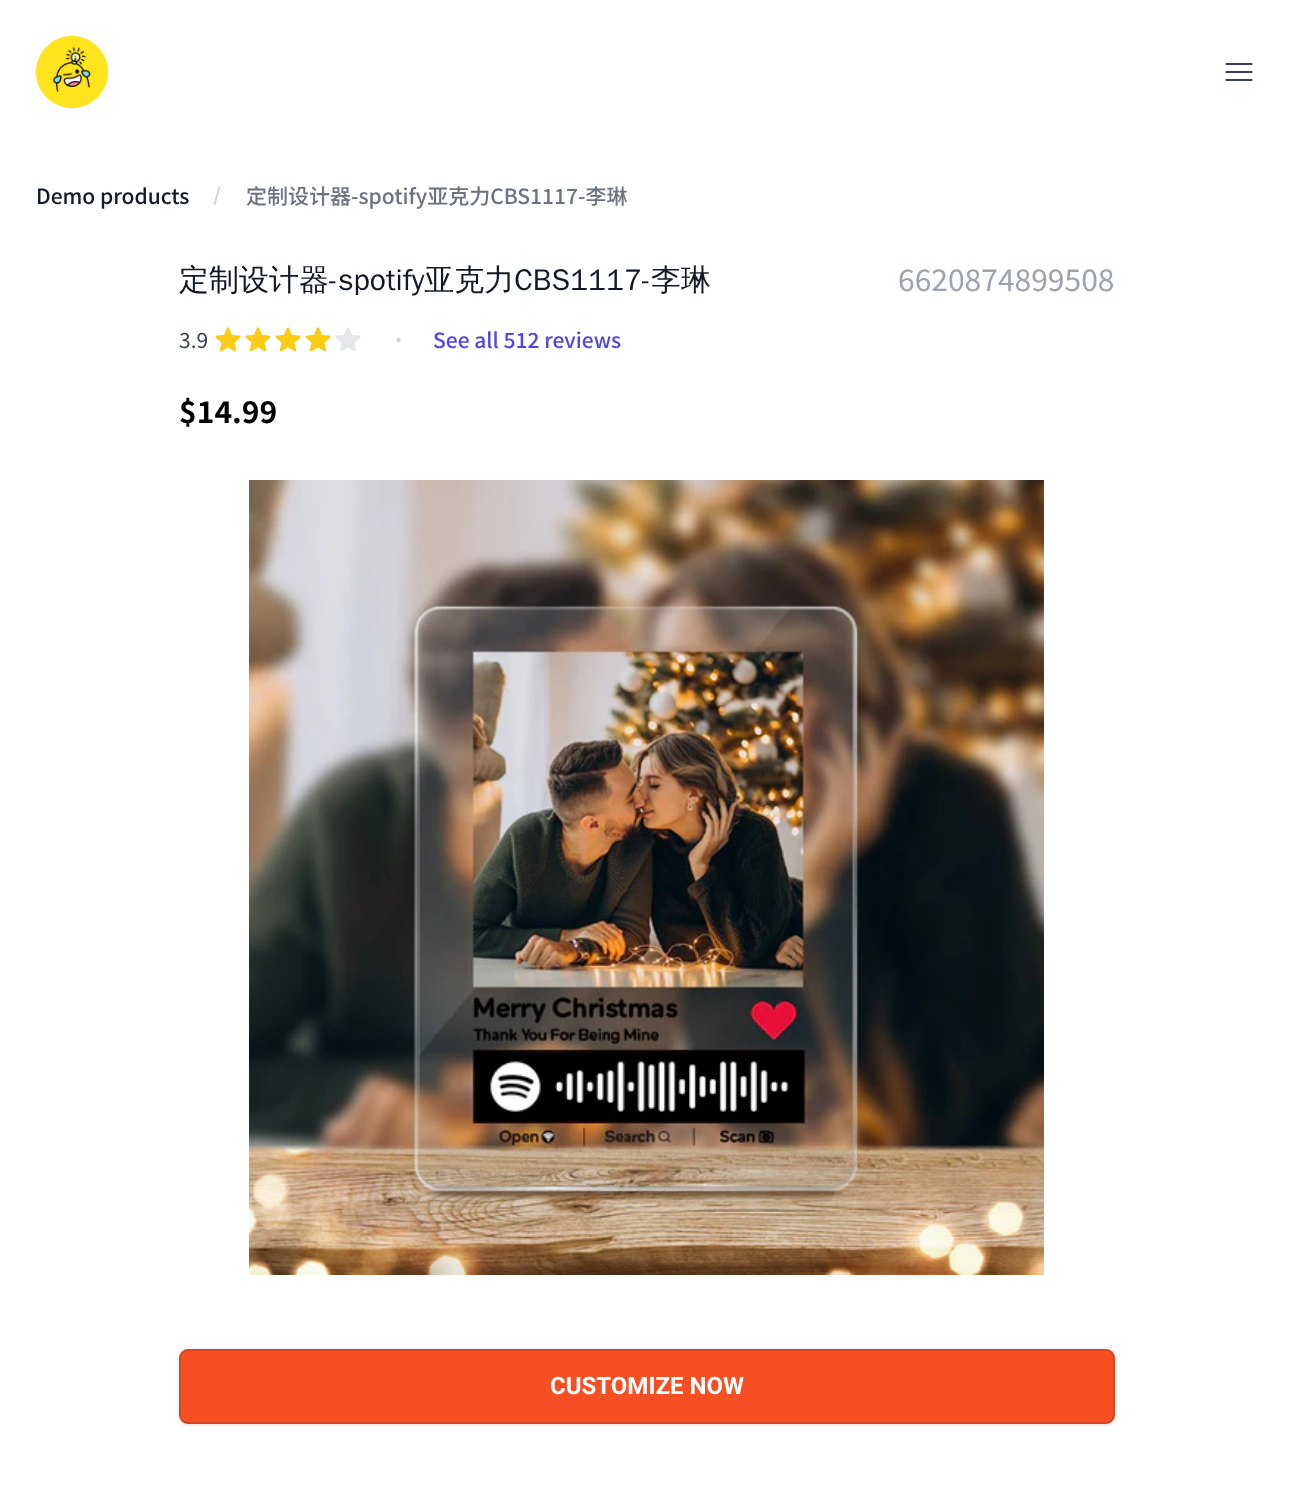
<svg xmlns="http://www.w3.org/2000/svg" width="1293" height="1497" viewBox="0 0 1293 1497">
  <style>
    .t1 { font: 500 21px Noto Sans SC; fill: #111827; }
    .t2 { font: 500 21px Noto Sans SC; fill: #6b7280; }
    .t3 { font: 500 30px WenQuanYi Zen Hei; fill: #111827; }
    .t4 { font: 30px Noto Sans SC; fill: #9ca3af; }
    .t5 { font: 21px Noto Sans SC; fill: #374151; }
    .t6 { font: 21px Noto Sans SC; fill: #d1d5db; }
    .t7 { font: 500 21px Noto Sans SC; fill: #4f46e5; }
    .t8 { font: bold 30px Noto Sans SC; fill: #000; }
    .t9 { font: bold 24px Roboto; fill: #fff; }
  </style>
  <rect width="100%" height="100%" fill="#fff"/>
  <image x="36" y="36" width="72" height="72" href="images/1.png"/>
  <path d="M1226.5 64H1251.5M1226.5 72H1251.5M1226.5 80H1251.5" fill="none" stroke="#374151" stroke-width="2.2" stroke-linecap="round" stroke-linejoin="round"/>
  <text x="36" y="204" class="t1">Demo products</text>
  <path d="M220.5 186.5H218.5L213.5 205H215.5Z" fill="#d1d5db"/>
  <text x="246" y="204" class="t2">定制设计器-spotify亚克力CBS1117-李琳</text>
  <text x="179" y="290" class="t3">定制设计器-spotify亚克力CBS1117-李琳</text>
  <text x="898" y="291" class="t4">6620874899508</text>
  <text x="179" y="348" class="t5">3.9</text>
  <image x="215" y="327" width="26" height="25" href="images/2.png"/>
  <image x="245" y="327" width="26" height="25" href="images/2.png"/>
  <image x="275" y="327" width="26" height="25" href="images/2.png"/>
  <image x="305" y="327" width="26" height="25" href="images/2.png"/>
  <image x="335" y="327" width="26" height="25" href="images/3.png"/>
  <text x="388" y="348" class="t6">·</text>
  <text x="433" y="348" class="t7">See all 512 reviews</text>
  <text x="179" y="423" class="t8">$14.99</text>
  <image x="249" y="480" width="795" height="795" href="images/4.png"/>
  <rect x="179" y="1350" width="936" height="75" rx="9" fill="#0000001f" filter="blur(2px)"/>
  <rect x="179" y="1349" width="936" height="75" rx="9" fill="#f54f23"/>
  <rect x="180" y="1350" width="934" height="73" rx="8" fill="none" stroke="#0000001f" stroke-width="2"/>
  <text x="550" y="1394" class="t9">CUSTOMIZE NOW</text>
</svg>
